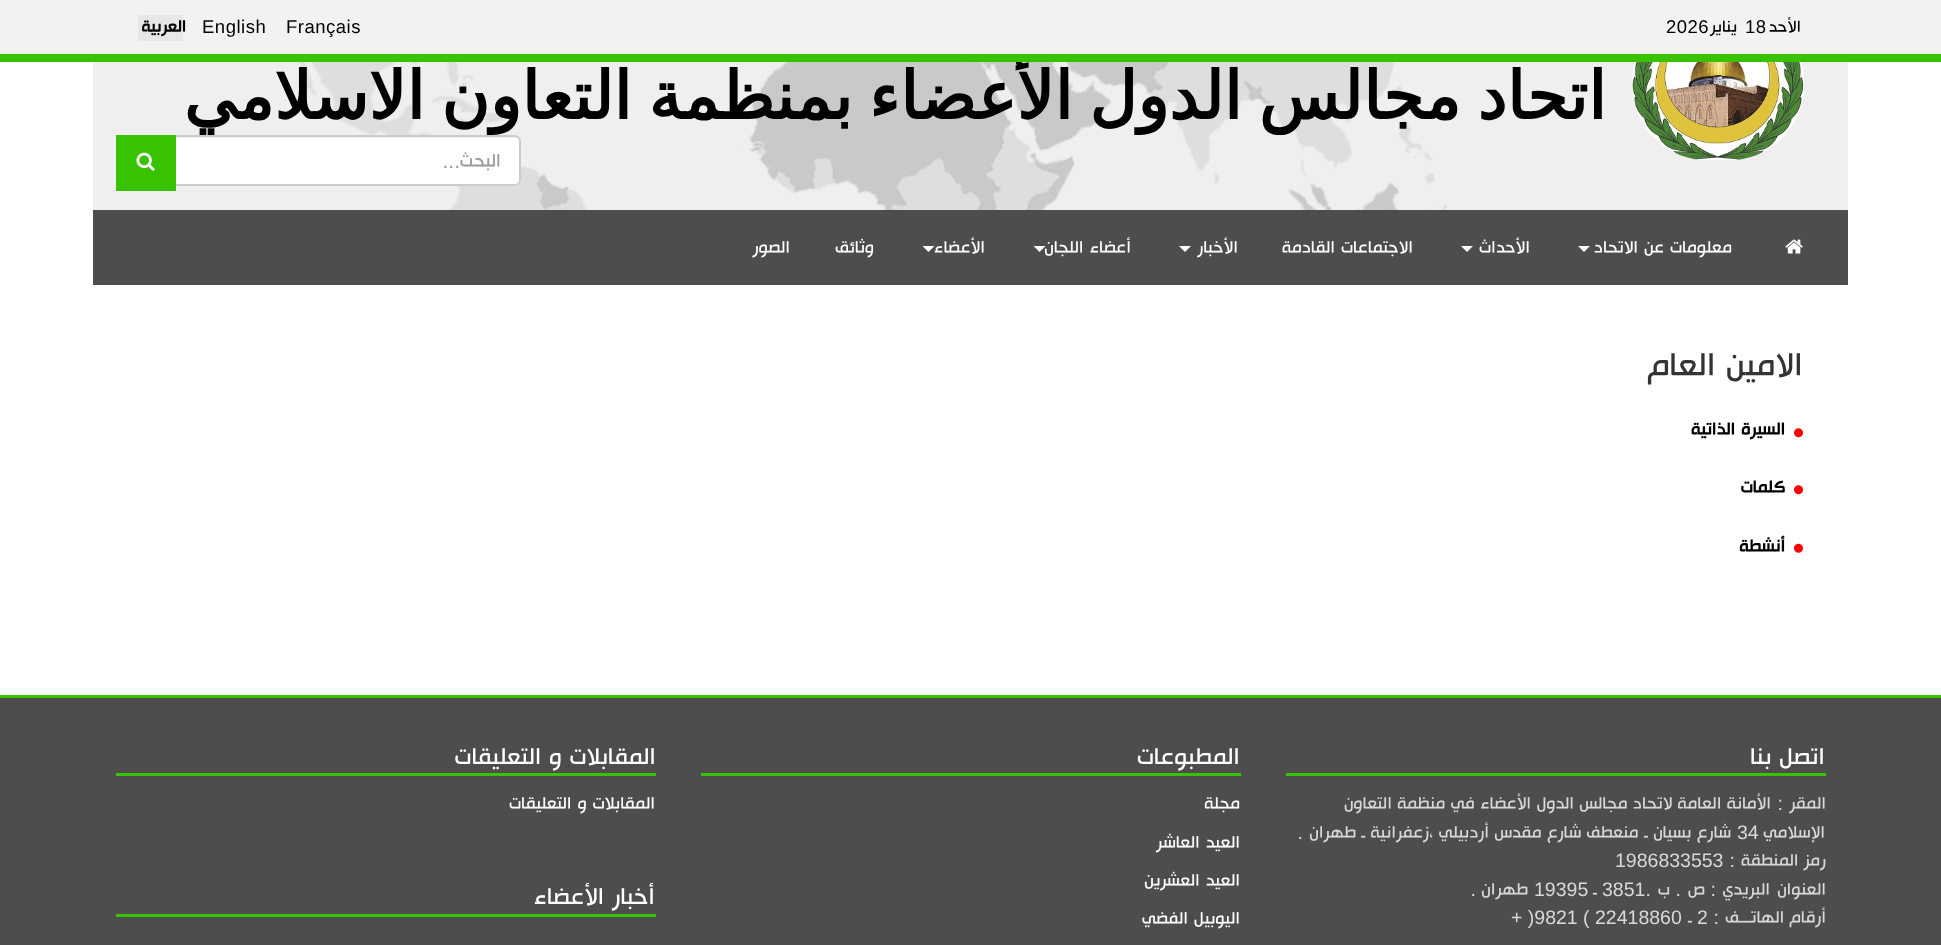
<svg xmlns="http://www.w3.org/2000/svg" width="1941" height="945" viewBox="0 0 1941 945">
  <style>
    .t1 { font: bold 66px DejaVu Sans; direction: rtl; fill: #000; }
    .t2 { font: 18.5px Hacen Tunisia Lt; letter-spacing: 0.5px; direction: rtl; fill: #000; }
    .t3 { font: 18.5px Liberation Sans; letter-spacing: 0.5px; fill: #000; }
    .t4 { font: bold 18.5px Hacen Tunisia Lt; letter-spacing: 0.5px; direction: rtl; fill: #000; }
    .t5 { font: 21px Hacen Tunisia Lt; direction: rtl; fill: #999; }
    .t6 { font: 21px Liberation Sans; direction: rtl; fill: #999; }
    .t7 { font: 19.5px Hacen Tunisia Lt; direction: rtl; fill: #fff; }
    .t8 { font: 37.5px Hacen Tunisia Lt; direction: rtl; fill: #333; }
    .t9 { font: bold 19.5px Hacen Tunisia Lt; direction: rtl; fill: #000; }
    .t10 { font: 27px Hacen Tunisia Lt; direction: rtl; fill: #fff; }
    .t11 { font: 19.5px Hacen Tunisia Lt; direction: rtl; fill: #d8d8d8; }
    .t12 { font: 19.5px Liberation Sans; direction: rtl; fill: #d8d8d8; }
    .t13 { font: 19.5px Liberation Sans; fill: #d8d8d8; }
  </style>
  <rect width="100%" height="100%" fill="#fff"/>
  <rect x="0" y="0" width="1941" height="54" fill="#f2f2f2"/>
  <image x="93" y="62" width="1755" height="148" href="images/1.png"/>
  <text x="1606" y="119" word-spacing="-4.5" class="t1">اتحاد مجالس الدول الأعضاء بمنظمة التعاون الاسلامي</text>
  <rect x="0" y="54" width="1941" height="8" fill="#39c200"/>
  <text x="1801" y="33" class="t2">الأحد</text>
  <text x="1745" y="33" class="t3">18</text>
  <text x="1666" y="33" class="t3">2026</text>
  <text x="1737" y="33" class="t2">يناير</text>
  <text x="286" y="33" class="t3">Français</text>
  <text x="202" y="33" class="t3">English</text>
  <rect x="138" y="15" width="45" height="26" fill="#e7e7e7"/>
  <text x="186" y="33" class="t4">العربية</text>
  <image x="1632" y="62" width="172" height="99" href="images/2.png"/>
  <rect x="138" y="135" width="383" height="51" rx="6" fill="#fff"/>
  <path d="M144 138H514C517 138 519 140 519 142C519 139 517 137 514 137H145C142 137 140 139 140 142C140 140 142 138 144 138Z" fill="#ececec"/>
  <rect x="139" y="136" width="381" height="49" rx="5" fill="none" stroke="#ccc" stroke-width="2"/>
  <text x="501" y="168" class="t5">البحث</text>
  <text x="460" y="168" class="t6">...</text>
  <rect x="116" y="135" width="60" height="56" fill="#39c200"/>
  <image x="136" y="152" width="19" height="19" href="images/3.png"/>
  <rect x="93" y="210" width="1755" height="75" fill="#4d4d4d"/>
  <image x="1785" y="239" width="18" height="15" href="images/4.png"/>
  <text x="1732" y="254" word-spacing="1" class="t7">معلومات عن الاتحاد</text>
  <path d="M1578 246H1590L1584 252Z" fill="#fff"/>
  <text x="1530" y="254" class="t7">الأحداث</text>
  <path d="M1461 246H1473L1467 252Z" fill="#fff"/>
  <text x="1413" y="254" word-spacing="1" class="t7">الاجتماعات القادمة</text>
  <text x="1238" y="254" class="t7">الأخبار</text>
  <path d="M1179 246H1191L1185 252Z" fill="#fff"/>
  <text x="1131" y="254" word-spacing="1" class="t7">أعضاء اللجان</text>
  <path d="M1033.5 246H1045.5L1039.5 252Z" fill="#fff"/>
  <text x="985" y="254" class="t7">الأعضاء</text>
  <path d="M922.5 246H934.5L928.5 252Z" fill="#fff"/>
  <text x="874" y="254" class="t7">وثائق</text>
  <text x="790" y="254" class="t7">الصور</text>
  <text x="1803" y="378" word-spacing="1" class="t8">الامين العام</text>
  <image x="1794" y="428" width="9" height="10" href="images/5.png"/>
  <text x="1785" y="436" word-spacing="1" class="t9">السيرة الذاتية</text>
  <image x="1794" y="485" width="9" height="10" href="images/5.png"/>
  <text x="1785" y="494" class="t9">كلمات</text>
  <image x="1794" y="543" width="9" height="10" href="images/6.png"/>
  <text x="1785" y="553" class="t9">أنشطة</text>
  <rect x="0" y="698" width="1941" height="247" fill="#4d4d4d"/>
  <rect x="0" y="695" width="1941" height="3" fill="#39c200"/>
  <rect x="1286" y="773" width="540" height="3" fill="#39c200"/>
  <text x="1825" y="766" word-spacing="1" class="t10">اتصل بنا</text>
  <text x="1826" y="810" class="t11">المقر</text>
  <text x="1783" y="810" class="t12">:</text>
  <text x="1771" y="810" word-spacing="0.5" class="t11">الأمانة العامة لاتحاد مجالس الدول الأعضاء في منظمة التعاون</text>
  <text x="1825" y="839" class="t11">الإسلامي</text>
  <text x="1737" y="839" class="t13">34</text>
  <text x="1731" y="839" word-spacing="0.5" class="t11">شارع بسيان ـ منعطف شارع مقدس أردبيلي ،زعفرانية ـ طهران</text>
  <text x="1303" y="839" class="t12">.</text>
  <text x="1826" y="867" class="t11">رمز المنطقة</text>
  <text x="1735" y="867" class="t12">:</text>
  <text x="1615" y="867" class="t13">1986833553</text>
  <text x="1826" y="896" class="t11">العنوان</text>
  <text x="1770" y="896" class="t11">البريدي</text>
  <text x="1716" y="896" class="t12">:</text>
  <text x="1705" y="896" class="t11">ص</text>
  <text x="1681" y="896" class="t12">.</text>
  <text x="1670" y="896" class="t11">ب</text>
  <text x="1651" y="896" class="t12">.</text>
  <text x="1602" y="896" class="t13">3851</text>
  <text x="1597" y="896" class="t11">ـ</text>
  <text x="1534" y="896" class="t13">19395</text>
  <text x="1528" y="896" class="t11">طهران</text>
  <text x="1476" y="896" class="t12">.</text>
  <text x="1826" y="924" class="t11">أرقام الهاتـــف</text>
  <text x="1719" y="924" class="t12">:</text>
  <text x="1697" y="924" class="t13">2</text>
  <text x="1692" y="924" class="t11">ـ</text>
  <text x="1511" y="924" class="t13">+ )9821 ( 22418860</text>
  <rect x="701" y="773" width="540" height="3" fill="#39c200"/>
  <text x="1240" y="766" class="t10">المطبوعات</text>
  <text x="1240" y="810" class="t7">مجلة</text>
  <text x="1240" y="849" word-spacing="1" class="t7">العيد العاشر</text>
  <text x="1240" y="887" word-spacing="1" class="t7">العيد العشرين</text>
  <text x="1240" y="925" word-spacing="1" class="t7">اليوبيل الفضي</text>
  <rect x="116" y="773" width="540" height="3" fill="#39c200"/>
  <text x="656" y="766" word-spacing="1" class="t10">المقابلات و التعليقات</text>
  <text x="655" y="810" word-spacing="1" class="t7">المقابلات و التعليقات</text>
  <rect x="116" y="914" width="540" height="3" fill="#39c200"/>
  <text x="655" y="906" word-spacing="1" class="t10">أخبار الأعضاء</text>
</svg>
